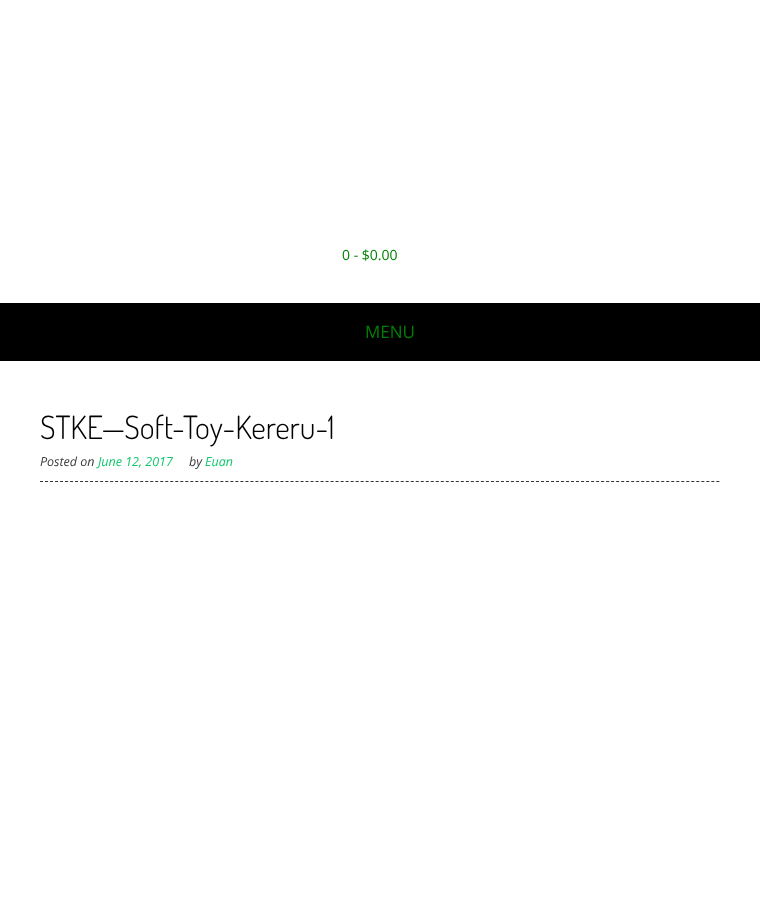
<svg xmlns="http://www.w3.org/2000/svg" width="760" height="905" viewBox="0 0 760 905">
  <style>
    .t1 { font: 14px Open Sans; fill: #008000; }
    .t2 { font: 17px Open Sans; fill: #008000; }
    .t3 { font: 300 32px Dosis; fill: #000; }
    .t4 { font: italic 12.5px Open Sans; fill: #3c3c3c; }
    .t5 { font: italic 12.5px Open Sans; fill: #13c76d; }
  </style>
  <rect width="100%" height="100%" fill="#fff"/>
  <text x="342" y="260" class="t1">0 - $0.00</text>
  <rect x="0" y="303" width="760" height="58" fill="#000"/>
  <text x="365" y="338" class="t2">MENU</text>
  <path d="M40 481.5H720" fill="none" stroke="#333" stroke-dasharray="3 2.01"/>
  <text x="40" y="439" class="t3">STKE—Soft-Toy-Kereru-1</text>
  <text x="40" y="466" class="t4">Posted on</text>
  <text x="98" y="466" class="t5">June 12, 2017</text>
  <text x="189" y="466" class="t4">by</text>
  <text x="205" y="466" class="t5">Euan</text>
</svg>
